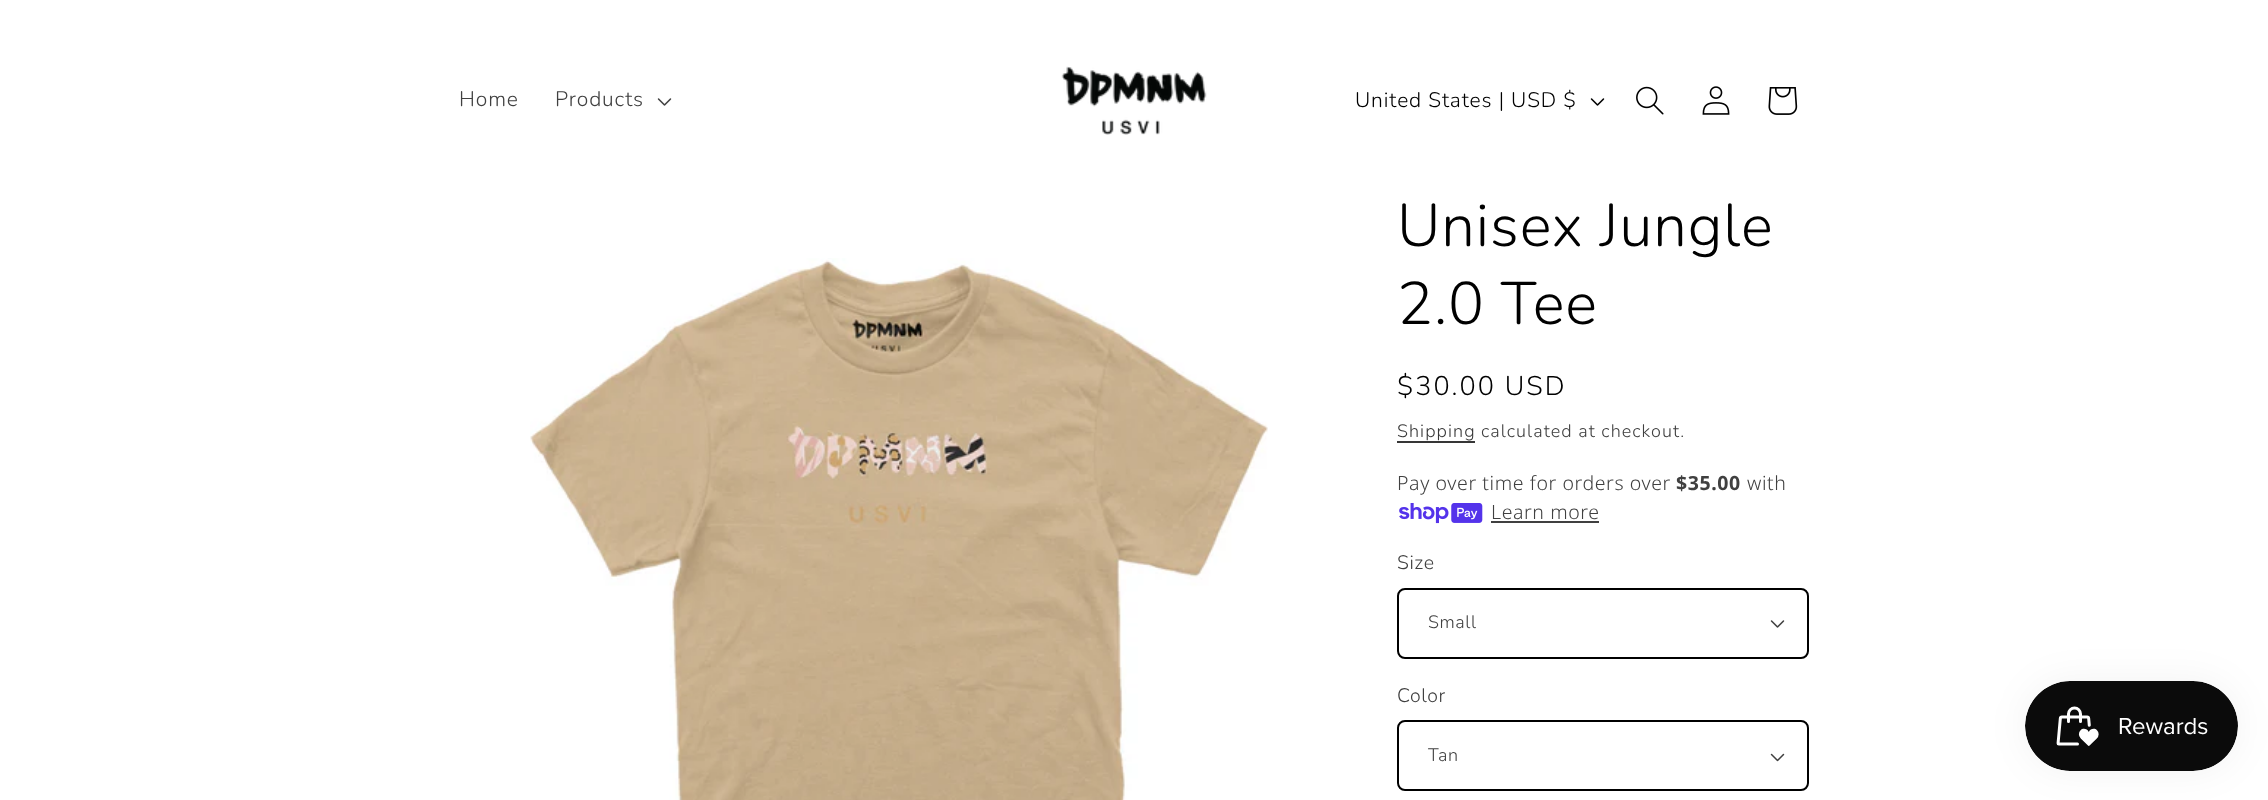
<svg xmlns="http://www.w3.org/2000/svg" width="2268" height="800" viewBox="0 0 2268 800">
  <style>
    .t1 { font: 300 21px Nunito; letter-spacing: 0.9px; fill: #404040; }
    .t2 { font: 300 21px Nunito; letter-spacing: 0.9px; fill: #000; }
    .t3 { font: 300 60px Nunito; letter-spacing: 0.9px; fill: #000; }
    .t4 { font: 300 27px Nunito; letter-spacing: 2px; fill: #000; }
    .t5 { font: 300 18px Nunito; letter-spacing: 1.05px; fill: #363636; }
    .t6 { font: 300 18px Nunito; letter-spacing: 1.05px; fill: #404040; }
    .t7 { font: 300 19.5px Noto Sans; letter-spacing: 0.6px; fill: #404040; }
    .t8 { font: bold 19.5px Noto Sans; letter-spacing: 0.6px; fill: #404040; }
    .t9 { font: 300 19.5px Nunito; letter-spacing: 0.6px; fill: #404040; }
    .t10 { font: 300 18px Nunito; letter-spacing: 0.6px; fill: #404040; }
  </style>
  <rect width="100%" height="100%" fill="#fff"/>
  <text x="459" y="106" class="t1">Home</text>
  <text x="555" y="106" class="t1">Products</text>
  <image x="657" y="98" width="15" height="8" href="images/1.png"/>
  <image x="1061" y="66" width="146" height="69" href="images/2.png"/>
  <text x="1355" y="107" class="t2">United States | USD $</text>
  <image x="1590" y="98" width="15" height="8" href="images/3.png"/>
  <image x="1636" y="86" width="28" height="29" href="images/4.png"/>
  <image x="1702" y="86" width="28" height="29" href="images/5.png"/>
  <image x="1768" y="87" width="30" height="28" href="images/6.png"/>
  <image x="530" y="258" width="738" height="542" href="images/7.png"/>
  <text x="1397" y="246" class="t3">Unisex Jungle</text>
  <text x="1397" y="324" class="t3">2.0 Tee</text>
  <text x="1397" y="395" class="t4">$30.00 USD</text>
  <text x="1397" y="437" class="t5">Shipping</text>
  <rect x="1397" y="441" width="78" height="2" fill="#363636"/>
  <text x="1481" y="437" class="t6">calculated at checkout.</text>
  <text x="1397" y="490" class="t7">Pay over time for orders over</text>
  <text x="1676" y="490" class="t8">$35.00</text>
  <text x="1747" y="490" class="t7">with</text>
  <image x="1399" y="503" width="84" height="21" href="images/8.png"/>
  <text x="1491" y="519" class="t7">Learn more</text>
  <rect x="1491" y="521" width="108" height="2" fill="#404040"/>
  <text x="1397" y="569" class="t9">Size</text>
  <image x="1770" y="620" width="15" height="8" href="images/1.png"/>
  <rect x="1398" y="589" width="410" height="69" rx="7" fill="none" stroke="#000" stroke-width="2"/>
  <text x="1428" y="628" class="t10">Small</text>
  <text x="1397" y="702" class="t9">Color</text>
  <image x="1770" y="753" width="15" height="9" href="images/9.png"/>
  <rect x="1398" y="721" width="410" height="69" rx="7" fill="none" stroke="#000" stroke-width="2"/>
  <text x="1428" y="761" class="t10">Tan</text>
  <rect x="2025" y="681" width="213" height="90" rx="45" fill="#0000000d" filter="blur(19px)"/>
  <image x="2025" y="681" width="213" height="90" href="images/10.png"/>
</svg>
